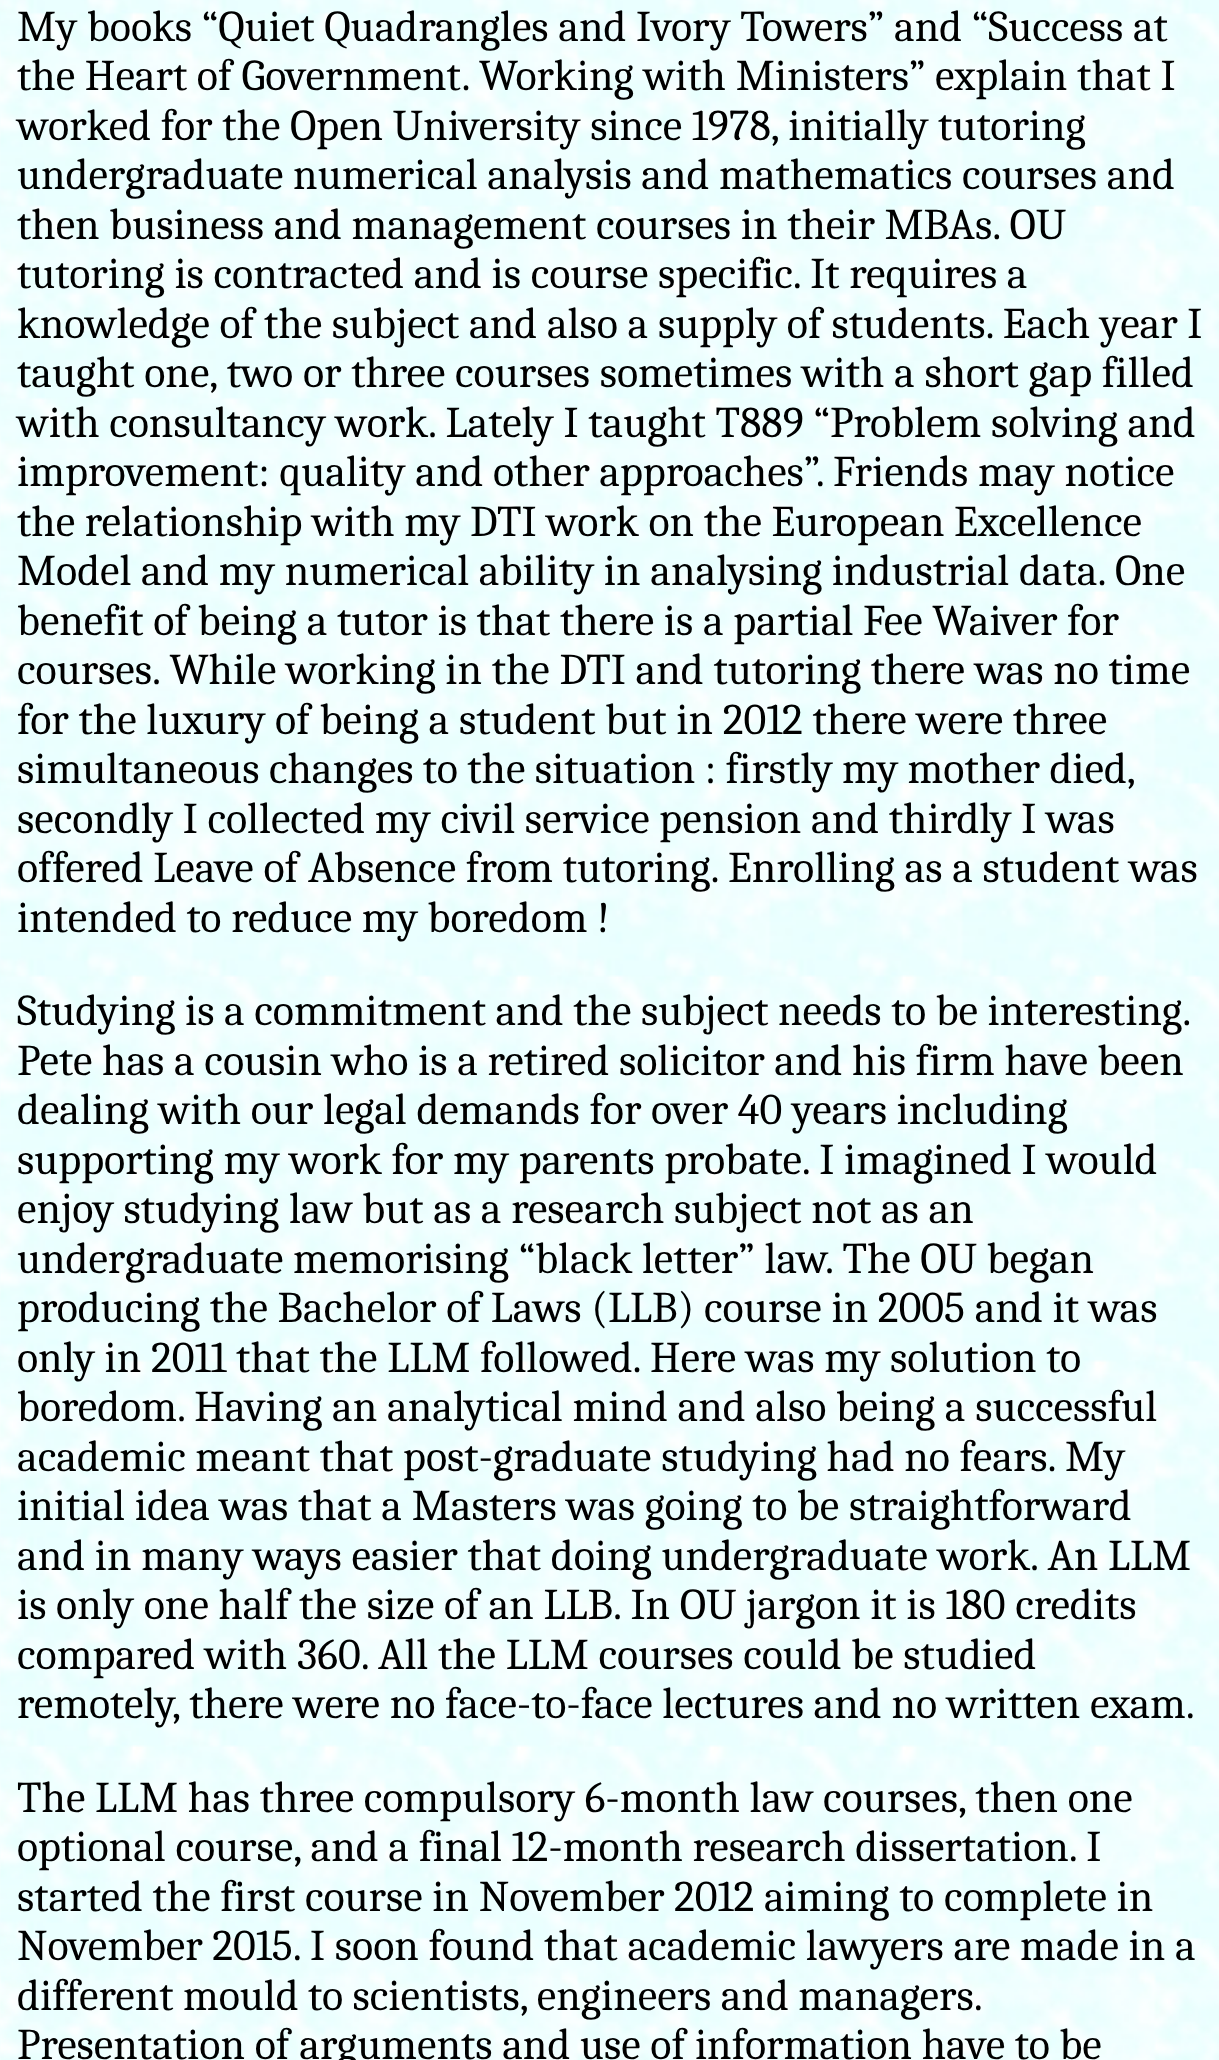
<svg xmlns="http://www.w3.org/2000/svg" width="1219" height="2060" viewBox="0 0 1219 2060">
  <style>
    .t1 { font: 44px Caladea; fill: #000; }
  </style>
  <rect width="100%" height="100%" fill="#fff"/>
  <image x="0" y="0" width="1219" height="2060" href="images/1.png"/>
  <text x="17" y="41" class="t1">My books “Quiet Quadrangles and Ivory Towers” and “Success at</text>
  <text x="17" y="90" class="t1">the Heart of Government. Working with Ministers” explain that I</text>
  <text x="17" y="140" class="t1">worked for the Open University since 1978, initially tutoring</text>
  <text x="17" y="189" class="t1">undergraduate numerical analysis and mathematics courses and</text>
  <text x="17" y="239" class="t1">then business and management courses in their MBAs. OU</text>
  <text x="17" y="288" class="t1">tutoring is contracted and is course specific. It requires a</text>
  <text x="17" y="338" class="t1">knowledge of the subject and also a supply of students. Each year I</text>
  <text x="17" y="387" class="t1">taught one, two or three courses sometimes with a short gap filled</text>
  <text x="17" y="437" class="t1">with consultancy work. Lately I taught T889 “Problem solving and</text>
  <text x="17" y="486" class="t1">improvement: quality and other approaches”. Friends may notice</text>
  <text x="17" y="536" class="t1">the relationship with my DTI work on the European Excellence</text>
  <text x="17" y="585" class="t1">Model and my numerical ability in analysing industrial data. One</text>
  <text x="17" y="635" class="t1">benefit of being a tutor is that there is a partial Fee Waiver for</text>
  <text x="17" y="684" class="t1">courses. While working in the DTI and tutoring there was no time</text>
  <text x="17" y="734" class="t1">for the luxury of being a student but in 2012 there were three</text>
  <text x="17" y="783" word-spacing="-0.25" class="t1">simultaneous changes to the situation : firstly my mother died,</text>
  <text x="17" y="833" class="t1">secondly I collected my civil service pension and thirdly I was</text>
  <text x="17" y="882" class="t1">offered Leave of Absence from tutoring. Enrolling as a student was</text>
  <text x="17" y="932" class="t1">intended to reduce my boredom !</text>
  <text x="17" y="1025" word-spacing="-0.1" class="t1">Studying is a commitment and the subject needs to be interesting.</text>
  <text x="17" y="1075" class="t1">Pete has a cousin who is a retired solicitor and his firm have been</text>
  <text x="17" y="1124" class="t1">dealing with our legal demands for over 40 years including</text>
  <text x="17" y="1174" class="t1">supporting my work for my parents probate. I imagined I would</text>
  <text x="17" y="1223" class="t1">enjoy studying law but as a research subject not as an</text>
  <text x="17" y="1273" class="t1">undergraduate memorising “black letter” law. The OU began</text>
  <text x="17" y="1322" class="t1">producing the Bachelor of Laws (LLB) course in 2005 and it was</text>
  <text x="17" y="1372" class="t1">only in 2011 that the LLM followed. Here was my solution to</text>
  <text x="17" y="1421" class="t1">boredom. Having an analytical mind and also being a successful</text>
  <text x="17" y="1471" class="t1">academic meant that post-graduate studying had no fears. My</text>
  <text x="17" y="1520" class="t1">initial idea was that a Masters was going to be straightforward</text>
  <text x="17" y="1570" class="t1">and in many ways easier that doing undergraduate work. An LLM</text>
  <text x="17" y="1619" class="t1">is only one half the size of an LLB. In OU jargon it is 180 credits</text>
  <text x="17" y="1669" class="t1">compared with 360. All the LLM courses could be studied</text>
  <text x="17" y="1718" class="t1">remotely, there were no face-to-face lectures and no written exam.</text>
  <text x="17" y="1812" class="t1">The LLM has three compulsory 6-month law courses, then one</text>
  <text x="17" y="1861" class="t1">optional course, and a final 12-month research dissertation. I</text>
  <text x="17" y="1911" class="t1">started the first course in November 2012 aiming to complete in</text>
  <text x="17" y="1960" class="t1">November 2015. I soon found that academic lawyers are made in a</text>
  <text x="17" y="2010" word-spacing="-0.25" class="t1">different mould to scientists, engineers and managers.</text>
  <text x="17" y="2059" class="t1">Presentation of arguments and use of information have to be</text>
</svg>
